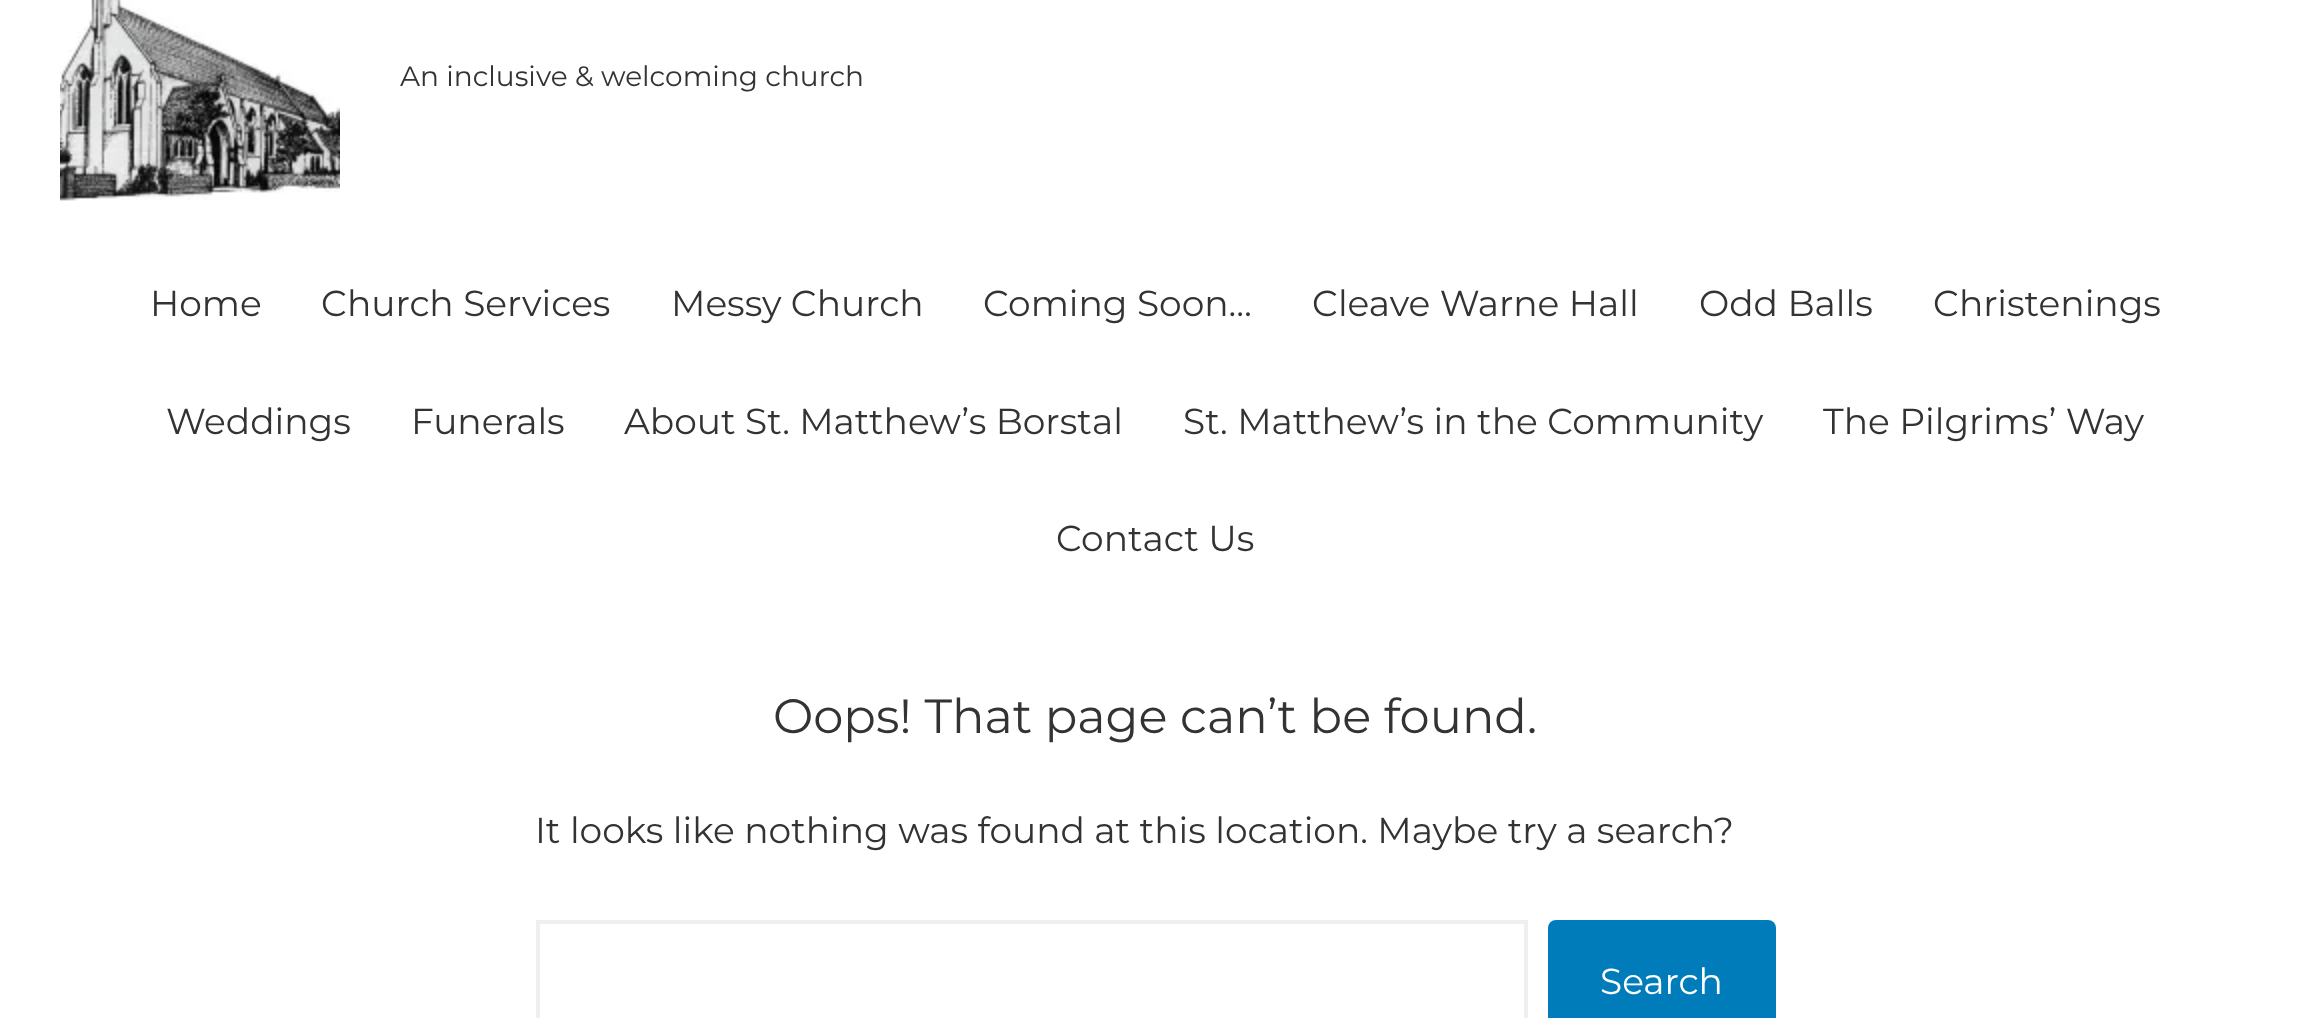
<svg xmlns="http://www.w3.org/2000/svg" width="2309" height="1018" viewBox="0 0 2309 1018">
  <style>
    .t1 { font: 28px Montserrat; fill: #333; }
    .t2 { font: 36px Montserrat; fill: #333; }
    .t3 { font: 48px Montserrat; fill: #333; }
    .t4 { font: 36px Montserrat; fill: #fff; }
  </style>
  <rect width="100%" height="100%" fill="#fff"/>
  <image x="60" y="0" width="280" height="201" href="images/1.png"/>
  <text x="400" y="86" class="t1">An inclusive &amp; welcoming church</text>
  <text x="150" y="316" class="t2">Home</text>
  <text x="321" y="316" class="t2">Church Services</text>
  <text x="671" y="316" class="t2">Messy Church</text>
  <text x="983" y="316" class="t2">Coming Soon…</text>
  <text x="1312" y="316" class="t2">Cleave Warne Hall</text>
  <text x="1699" y="316" class="t2">Odd Balls</text>
  <text x="1933" y="316" class="t2">Christenings</text>
  <text x="166" y="434" class="t2">Weddings</text>
  <text x="411" y="434" class="t2">Funerals</text>
  <text x="624" y="434" class="t2">About St. Matthew’s Borstal</text>
  <text x="1183" y="434" class="t2">St. Matthew’s in the Community</text>
  <text x="1823" y="434" class="t2">The Pilgrims’ Way</text>
  <text x="1056" y="551" class="t2">Contact Us</text>
  <text x="773" y="733" class="t3">Oops! That page can’t be found.</text>
  <text x="535" y="843" class="t2">It looks like nothing was found at this location. Maybe try a search?</text>
  <rect x="538" y="922" width="988" height="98" fill="none" stroke="#efefef" stroke-width="4"/>
  <rect x="1548" y="920" width="228" height="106" rx="8" fill="#007cba"/>
  <text x="1600" y="994" class="t4">Search</text>
</svg>
